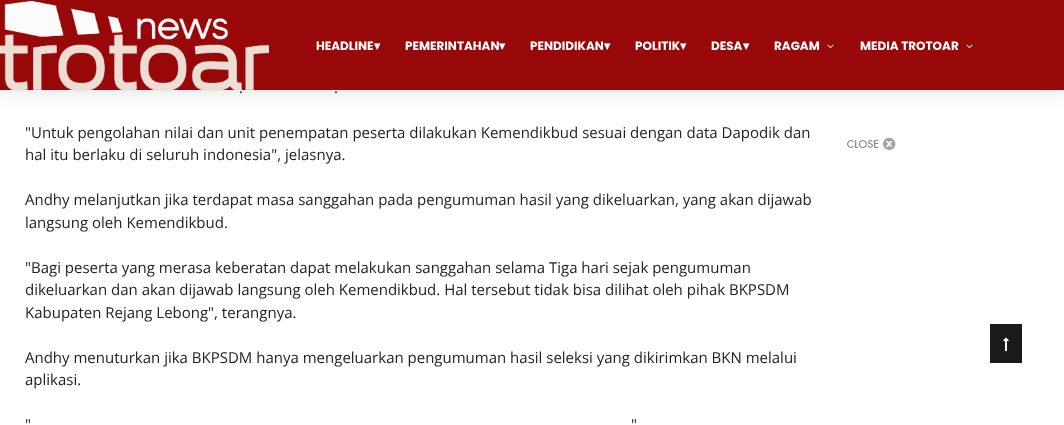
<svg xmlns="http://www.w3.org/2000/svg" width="1064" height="425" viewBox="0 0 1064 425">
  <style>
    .t1 { font: bold 12px Poppins; fill: #fff; }
    .t2 { font: bold 12px DejaVu Sans; fill: #fff; }
    .t3 { font: 15px Open Sans; fill: #222; }
  </style>
  <rect width="100%" height="100%" fill="#fff"/>
  <rect x="0" y="1" width="1064" height="90" fill="#0000001f" filter="blur(10px)"/>
  <rect x="0" y="0" width="1064" height="90" fill="#990808"/>
  <image x="0" y="1" width="269" height="90" href="images/1.png"/>
  <text x="316" y="50" class="t1">HEADLINE</text>
  <text x="374" y="50" class="t2">▾</text>
  <text x="405" y="50" class="t1">PEMERINTAHAN</text>
  <text x="499" y="50" class="t2">▾</text>
  <text x="530" y="50" class="t1">PENDIDIKAN</text>
  <text x="604" y="50" class="t2">▾</text>
  <text x="635" y="50" class="t1">POLITIK</text>
  <text x="680" y="50" class="t2">▾</text>
  <text x="711" y="50" class="t1">DESA</text>
  <text x="743" y="50" class="t2">▾</text>
  <text x="774" y="50" class="t1">RAGAM</text>
  <image x="827" y="44" width="7" height="5" href="images/2.png"/>
  <text x="860" y="50" class="t1">MEDIA TROTOAR</text>
  <image x="966" y="44" width="7" height="5" href="images/2.png"/>
  <text x="239" y="93" class="t3">.</text>
  <text x="334" y="93" class="t3">.</text>
  <text x="25" y="138" class="t3">"Untuk pengolahan nilai dan unit penempatan peserta dilakukan Kemendikbud sesuai dengan data Dapodik dan</text>
  <text x="25" y="160" class="t3">hal itu berlaku di seluruh indonesia", jelasnya.</text>
  <text x="25" y="205" class="t3">Andhy melanjutkan jika terdapat masa sanggahan pada pengumuman hasil yang dikeluarkan, yang akan dijawab</text>
  <text x="25" y="228" class="t3">langsung oleh Kemendikbud.</text>
  <text x="25" y="273" class="t3">"Bagi peserta yang merasa keberatan dapat melakukan sanggahan selama Tiga hari sejak pengumuman</text>
  <text x="25" y="295" class="t3">dikeluarkan dan akan dijawab langsung oleh Kemendikbud. Hal tersebut tidak bisa dilihat oleh pihak BKPSDM</text>
  <text x="25" y="318" class="t3">Kabupaten Rejang Lebong", terangnya.</text>
  <text x="25" y="363" class="t3">Andhy menuturkan jika BKPSDM hanya mengeluarkan pengumuman hasil seleksi yang dikirimkan BKN melalui</text>
  <text x="25" y="385" class="t3">aplikasi.</text>
  <text x="25" y="430" class="t3">"</text>
  <text x="631" y="430" class="t3">"</text>
  <image x="847" y="137" width="49" height="13" href="images/3.png"/>
  <rect x="990" y="324" width="32" height="39" fill="#1a1a1a"/>
  <image x="1003" y="337" width="6" height="14" href="images/4.png"/>
</svg>
